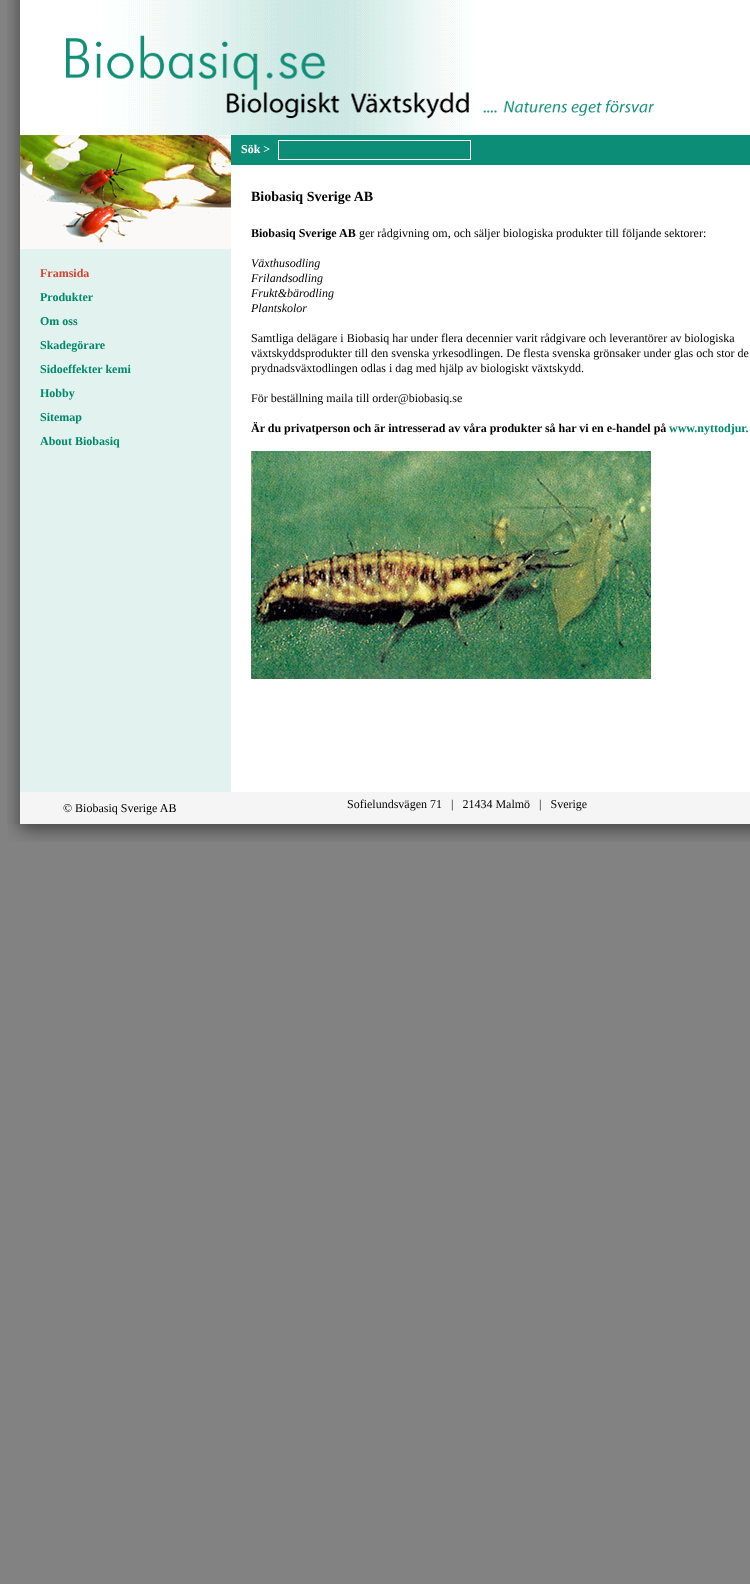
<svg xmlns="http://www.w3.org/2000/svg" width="750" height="1584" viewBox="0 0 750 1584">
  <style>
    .t1 { font: bold 12px Liberation Serif; fill: #fff; }
    .t2 { font: bold 12px Liberation Serif; fill: #db422e; }
    .t3 { font: bold 12px Liberation Serif; fill: #00896a; }
    .t4 { font: bold 14px Liberation Serif; fill: #000; }
    .t5 { font: bold 12px Liberation Serif; fill: #000; }
    .t6 { font: 12px Liberation Serif; fill: #000; }
    .t7 { font: italic 12px Liberation Serif; fill: #000; }
  </style>
  <rect width="100%" height="100%" fill="#828282"/>
  <image x="7" y="0" width="13" height="824" href="images/1.png"/>
  <rect x="20" y="0" width="730" height="792" fill="#fff"/>
  <image x="103" y="0" width="374" height="135" href="images/2.png"/>
  <image x="66" y="35" width="588" height="84" href="images/3.png"/>
  <rect x="20" y="249" width="211" height="543" fill="#e2f2ef"/>
  <image x="20" y="135" width="211" height="114" href="images/4.png"/>
  <rect x="231" y="135" width="519" height="30" fill="#0b8d77"/>
  <text x="241" y="153" class="t1">Sök &gt;</text>
  <rect x="278.5" y="140.5" width="192" height="19" fill="none" stroke="#fff"/>
  <text x="40" y="277" class="t2">Framsida</text>
  <text x="40" y="301" class="t3">Produkter</text>
  <text x="40" y="325" class="t3">Om oss</text>
  <text x="40" y="349" class="t3">Skadegörare</text>
  <text x="40" y="373" class="t3">Sidoeffekter kemi</text>
  <text x="40" y="397" class="t3">Hobby</text>
  <text x="40" y="421" class="t3">Sitemap</text>
  <text x="40" y="445" class="t3">About Biobasiq</text>
  <text x="251" y="201" class="t4">Biobasiq Sverige AB</text>
  <text x="251" y="237" class="t5">Biobasiq Sverige AB</text>
  <text x="359" y="237" class="t6">ger rådgivning om, och säljer biologiska produkter till följande sektorer:</text>
  <text x="251" y="267" class="t7">Växthusodling</text>
  <text x="251" y="282" class="t7">Frilandsodling</text>
  <text x="251" y="297" class="t7">Frukt&amp;bärodling</text>
  <text x="251" y="312" class="t7">Plantskolor</text>
  <text x="251" y="342" class="t6">Samtliga delägare i Biobasiq har under flera decennier varit rådgivare och leverantörer av biologiska</text>
  <text x="251" y="357" class="t6">växtskyddsprodukter till den svenska yrkesodlingen. De flesta svenska grönsaker under glas och stor de</text>
  <text x="251" y="372" class="t6">prydnadsväxtodlingen odlas i dag med hjälp av biologiskt växtskydd.</text>
  <text x="251" y="402" class="t6">För beställning maila till order@biobasiq.se</text>
  <text x="251" y="432" class="t5">Är du privatperson och är intresserad av våra produkter så har vi en e-handel på</text>
  <text x="669" y="432" class="t3">www.nyttodjur.</text>
  <image x="251" y="451" width="400" height="228" href="images/5.png"/>
  <rect x="20" y="792" width="730" height="32" fill="#f5f5f5"/>
  <text x="63" y="812" class="t6">© Biobasiq Sverige AB</text>
  <text x="347" y="808" class="t6" xml:space="preserve">Sofielundsvägen 71   |   21434 Malmö   |   Sverige</text>
  <image x="8" y="824" width="742" height="18" href="images/6.png"/>
</svg>
